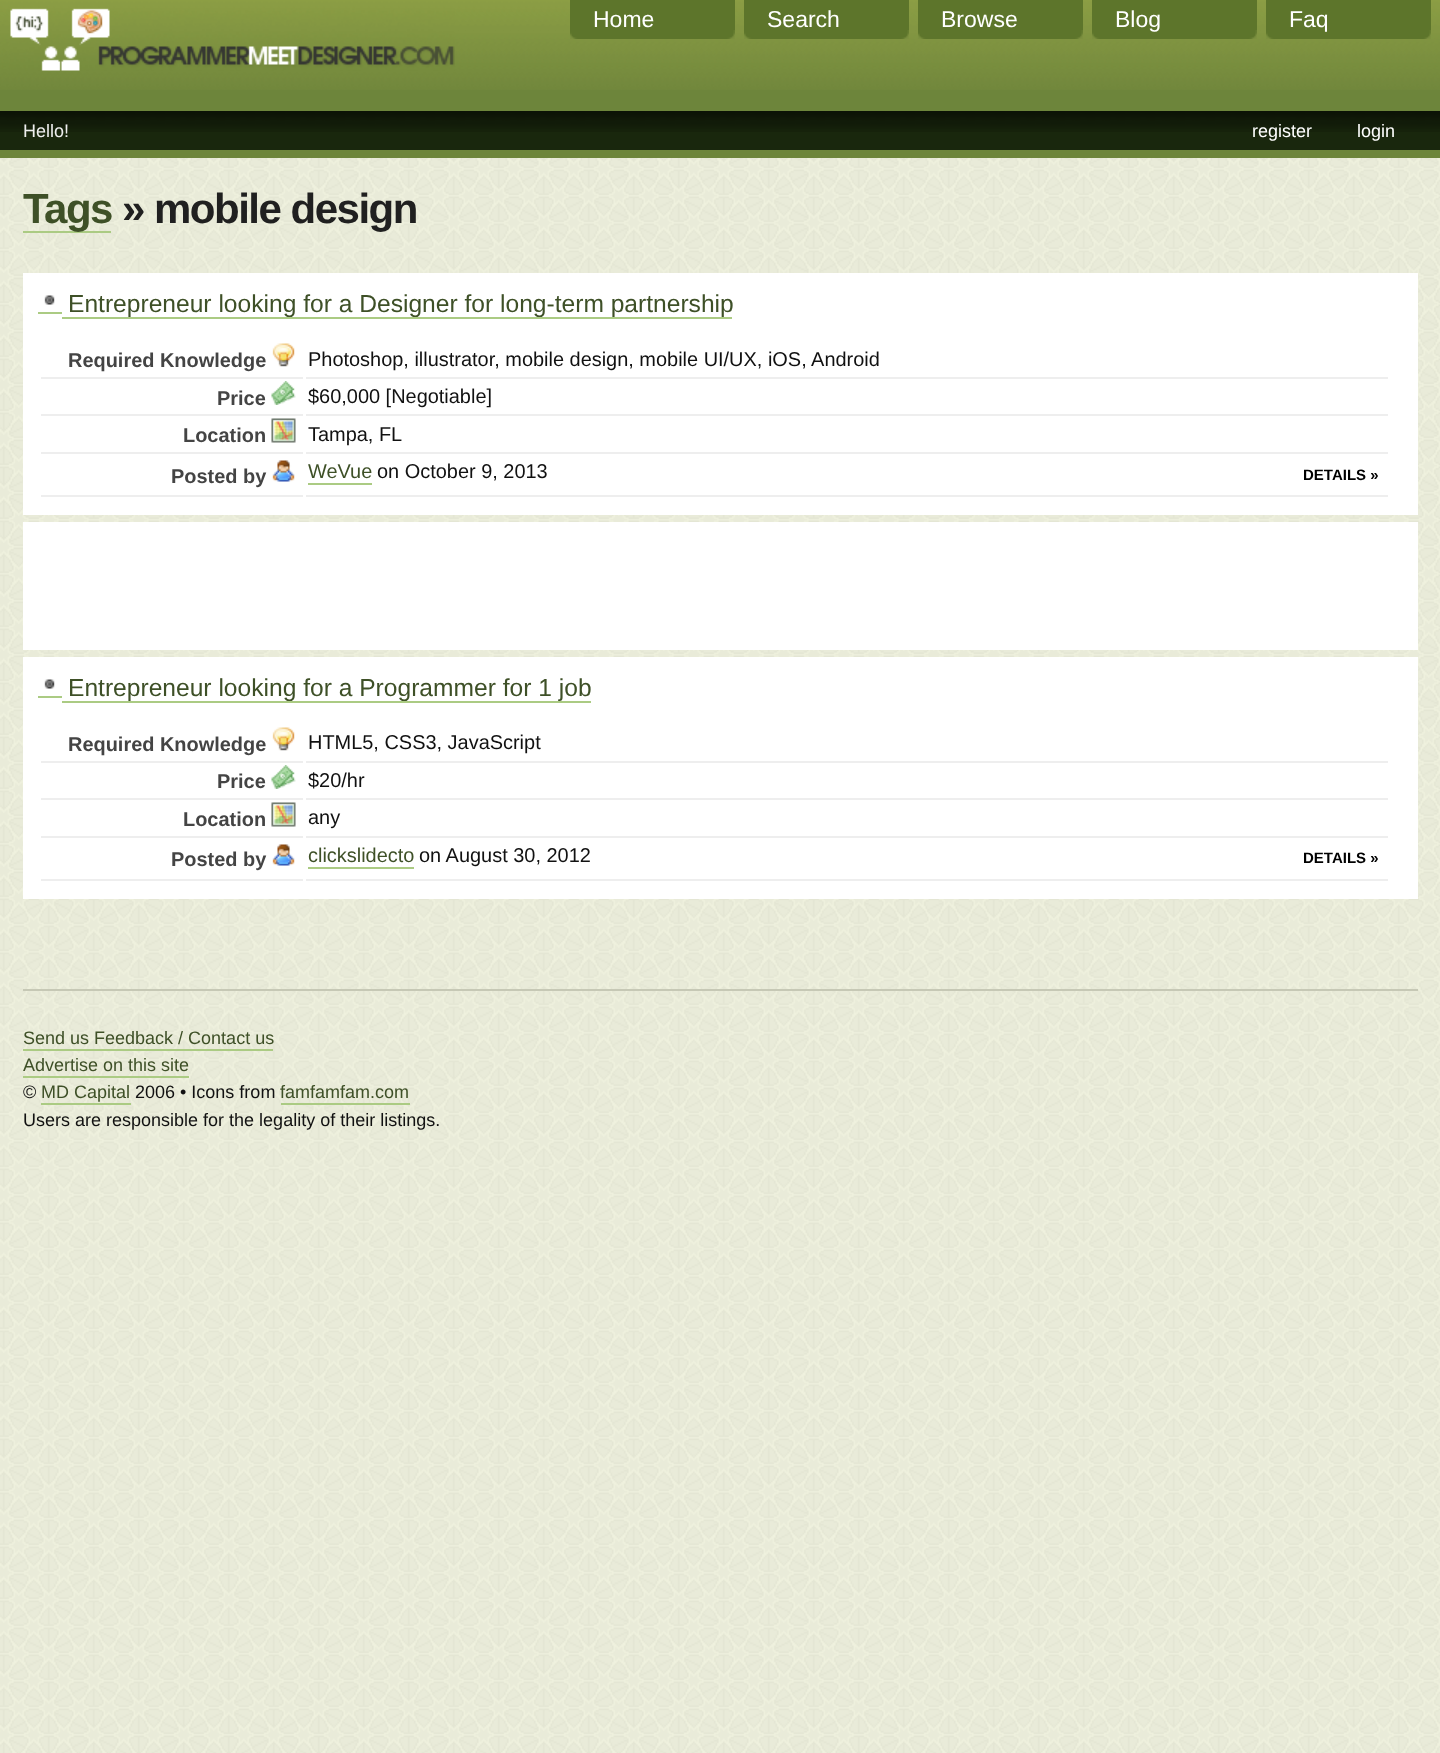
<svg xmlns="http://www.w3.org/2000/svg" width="1440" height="1753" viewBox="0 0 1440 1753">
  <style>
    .t1 { font: 23px Liberation Sans; fill: #fff; }
    .t2 { font: 18px Liberation Sans; fill: #eee; }
    .t3 { font: 18px Liberation Sans; fill: #fff; }
    .t4 { font: bold 42px Liberation Sans; letter-spacing: -1.5px; fill: #3e5027; }
    .t5 { font: bold 42px Liberation Sans; letter-spacing: -1.5px; fill: #202020; }
    .t6 { font: 24.6px Liberation Sans; fill: #3e5027; }
    .t7 { font: bold 19.95px Liberation Sans; fill: #444; }
    .t8 { font: 19.95px Liberation Sans; fill: #111; }
    .t9 { font: 19.95px Liberation Sans; fill: #3e5027; }
    .t10 { font: bold 15px Liberation Sans; fill: #000; }
    .t11 { font: 18px Liberation Sans; fill: #3e5027; }
    .t12 { font: 18px Liberation Sans; fill: #111; }
  </style>
  <rect width="100%" height="100%" fill="#fff"/>
  <image x="0" y="158" width="1440" height="1595" href="images/1.png"/>
  <rect x="0" y="90" width="1440" height="68" fill="#6d853b"/>
  <image x="0" y="0" width="1440" height="90" href="images/2.png"/>
  <image x="10" y="8" width="445" height="63" href="images/3.png"/>
  <rect x="570" y="0" width="165" height="30" fill="#5d752b"/>
  <image x="570" y="30" width="165" height="9" href="images/4.png"/>
  <text x="593" y="27" class="t1">Home</text>
  <rect x="744" y="0" width="165" height="30" fill="#5d752b"/>
  <image x="744" y="30" width="165" height="9" href="images/4.png"/>
  <text x="767" y="27" class="t1">Search</text>
  <rect x="918" y="0" width="165" height="30" fill="#5d752b"/>
  <image x="918" y="30" width="165" height="9" href="images/5.png"/>
  <text x="941" y="27" class="t1">Browse</text>
  <rect x="1092" y="0" width="165" height="30" fill="#5d752b"/>
  <image x="1092" y="30" width="165" height="9" href="images/4.png"/>
  <text x="1115" y="27" class="t1">Blog</text>
  <rect x="1266" y="0" width="165" height="30" fill="#5d752b"/>
  <image x="1266" y="30" width="165" height="9" href="images/6.png"/>
  <text x="1289" y="27" class="t1">Faq</text>
  <rect x="0" y="132" width="1440" height="18" fill="#19270d"/>
  <image x="0" y="111" width="1440" height="21" href="images/7.png"/>
  <text x="23" y="137" class="t2">Hello!</text>
  <text x="1252" y="137" class="t3">register</text>
  <text x="1357" y="137" class="t3">login</text>
  <rect x="23" y="231" width="88" height="2" fill="#abcb83"/>
  <text x="23" y="223" class="t4">Tags</text>
  <text x="122" y="223" class="t5">» mobile design</text>
  <rect x="23" y="273" width="1395" height="242" fill="#fff"/>
  <image x="44" y="295" width="11" height="10" href="images/8.png"/>
  <rect x="62" y="317" width="670" height="2" fill="#abcb83"/>
  <text x="68" y="312" class="t6">Entrepreneur looking for a Designer for long-term partnership</text>
  <rect x="38" y="312" width="24" height="2" fill="#abcb83"/>
  <rect x="41" y="377" width="262" height="2" fill="#eee"/>
  <text x="68" y="367" class="t7">Required Knowledge</text>
  <image x="272" y="343" width="23" height="24" href="images/9.png"/>
  <rect x="306" y="377" width="1082" height="2" fill="#eee"/>
  <text x="308" y="366" class="t8">Photoshop, illustrator, mobile design, mobile UI/UX, iOS, Android</text>
  <rect x="41" y="414" width="262" height="2" fill="#eee"/>
  <text x="217" y="405" class="t7">Price</text>
  <image x="271" y="381" width="25" height="24" href="images/10.png"/>
  <rect x="306" y="414" width="1082" height="2" fill="#eee"/>
  <text x="308" y="403" class="t8">$60,000 [Negotiable]</text>
  <rect x="41" y="452" width="262" height="2" fill="#eee"/>
  <text x="183" y="442" class="t7">Location</text>
  <image x="271" y="418" width="25" height="25" href="images/11.png"/>
  <rect x="306" y="452" width="1082" height="2" fill="#eee"/>
  <text x="308" y="441" class="t8">Tampa, FL</text>
  <rect x="41" y="495" width="262" height="2" fill="#eee"/>
  <text x="171" y="483" class="t7">Posted by</text>
  <image x="272" y="460" width="23" height="22" href="images/12.png"/>
  <rect x="306" y="495" width="1082" height="2" fill="#eee"/>
  <text x="308" y="478" class="t9">WeVue</text>
  <rect x="308" y="483" width="64" height="2" fill="#abcb83"/>
  <text x="377" y="478" class="t8">on October 9, 2013</text>
  <text x="1303" y="480" class="t10">DETAILS »</text>
  <rect x="23" y="522" width="1395" height="128" fill="#fff"/>
  <rect x="23" y="657" width="1395" height="242" fill="#fff"/>
  <image x="44" y="679" width="11" height="10" href="images/8.png"/>
  <rect x="62" y="701" width="529" height="2" fill="#abcb83"/>
  <text x="68" y="696" class="t6">Entrepreneur looking for a Programmer for 1 job</text>
  <rect x="38" y="696" width="24" height="2" fill="#abcb83"/>
  <rect x="41" y="761" width="262" height="2" fill="#eee"/>
  <text x="68" y="751" class="t7">Required Knowledge</text>
  <image x="272" y="727" width="23" height="24" href="images/9.png"/>
  <rect x="306" y="761" width="1082" height="2" fill="#eee"/>
  <text x="308" y="749" class="t8">HTML5, CSS3, JavaScript</text>
  <rect x="41" y="798" width="262" height="2" fill="#eee"/>
  <text x="217" y="788" class="t7">Price</text>
  <image x="271" y="765" width="25" height="24" href="images/10.png"/>
  <rect x="306" y="798" width="1082" height="2" fill="#eee"/>
  <text x="308" y="787" class="t8">$20/hr</text>
  <rect x="41" y="836" width="262" height="2" fill="#eee"/>
  <text x="183" y="826" class="t7">Location</text>
  <image x="271" y="802" width="25" height="25" href="images/11.png"/>
  <rect x="306" y="836" width="1082" height="2" fill="#eee"/>
  <text x="308" y="824" class="t8">any</text>
  <rect x="41" y="879" width="262" height="2" fill="#eee"/>
  <text x="171" y="866" class="t7">Posted by</text>
  <image x="272" y="844" width="23" height="22" href="images/12.png"/>
  <rect x="306" y="879" width="1082" height="2" fill="#eee"/>
  <text x="308" y="862" class="t9">clickslidecto</text>
  <rect x="308" y="867" width="106" height="2" fill="#abcb83"/>
  <text x="419" y="862" class="t8">on August 30, 2012</text>
  <text x="1303" y="863" class="t10">DETAILS »</text>
  <rect x="23" y="989" width="1395" height="2" fill="#c6c8b5"/>
  <text x="23" y="1044" class="t11">Send us Feedback / Contact us</text>
  <rect x="23" y="1049" width="250" height="2" fill="#abcb83"/>
  <text x="23" y="1071" class="t11">Advertise on this site</text>
  <rect x="23" y="1076" width="166" height="2" fill="#abcb83"/>
  <text x="23" y="1098" class="t12">©</text>
  <text x="41" y="1098" class="t11">MD Capital</text>
  <rect x="41" y="1103" width="90" height="2" fill="#abcb83"/>
  <text x="135" y="1098" class="t12">2006 • Icons from</text>
  <text x="280" y="1098" class="t11">famfamfam.com</text>
  <rect x="281" y="1103" width="129" height="2" fill="#abcb83"/>
  <text x="23" y="1126" class="t12">Users are responsible for the legality of their listings.</text>
</svg>
